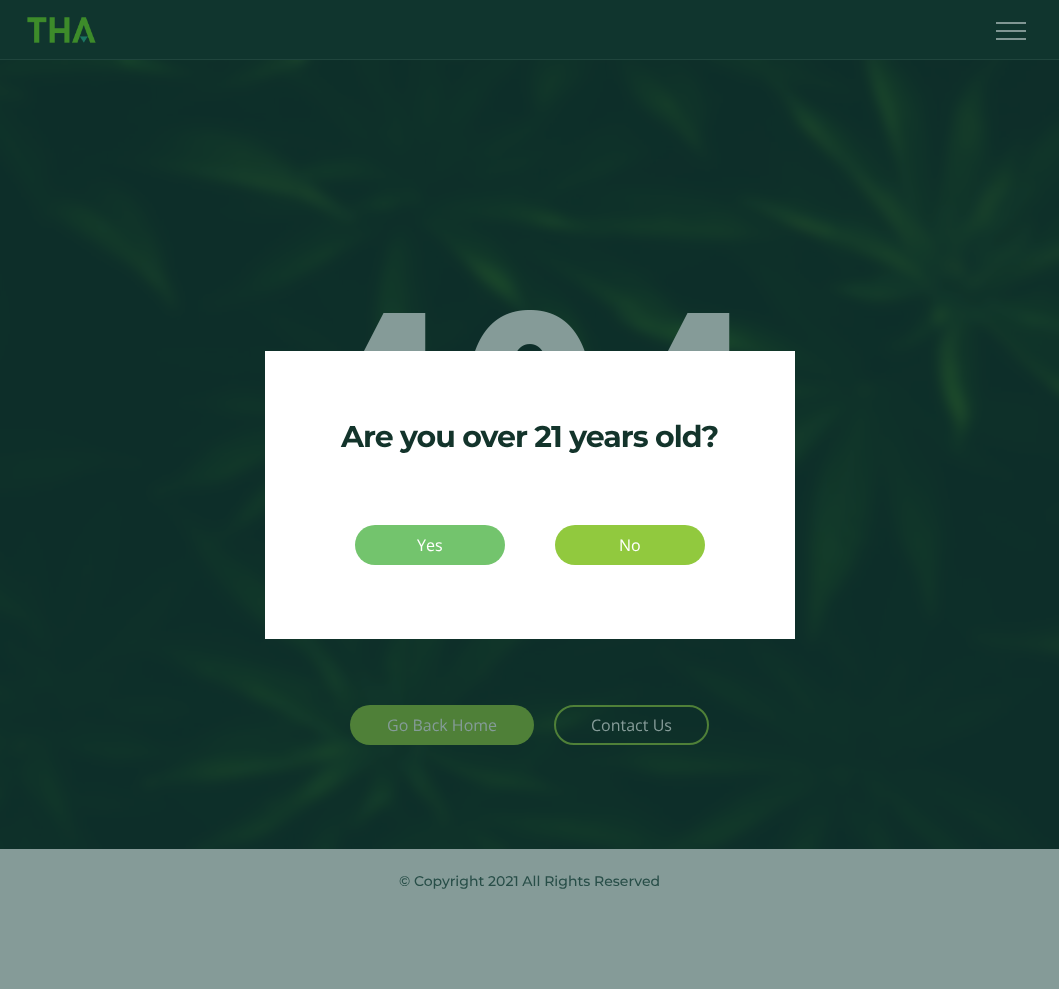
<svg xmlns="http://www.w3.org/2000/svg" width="1059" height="989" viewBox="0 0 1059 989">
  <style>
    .t1 { font: bold 30px Montserrat; letter-spacing: -1px; fill: #13342b; }
    .t2 { font: 16px Open Sans; fill: #fff; }
    .t3 { font: 16px Open Sans; fill: #859b98; }
    .t4 { font: 500 14px Montserrat; fill: #284e48; }
  </style>
  <rect width="100%" height="100%" fill="#859b98"/>
  <image x="0" y="60" width="1059" height="789" href="images/2.png"/>
  <rect x="265" y="351" width="530" height="288" fill="#fff"/>
  <text x="341" y="447" class="t1">Are you over 21 years old?</text>
  <rect x="355" y="525" width="150" height="40" rx="20" fill="#73c46d"/>
  <text x="417" y="551" class="t2">Yes</text>
  <rect x="555" y="525" width="150" height="40" rx="20" fill="#91c93e"/>
  <text x="619" y="551" class="t2">No</text>
  <rect x="0" y="0" width="1059" height="59" fill="#10352e"/>
  <image x="27" y="17" width="69" height="26" href="images/1.png"/>
  <rect x="996" y="22" width="30" height="2" fill="#809693"/>
  <rect x="996" y="38" width="30" height="2" fill="#809693"/>
  <rect x="996" y="30" width="30" height="2" fill="#809693"/>
  <rect x="0" y="59" width="1059" height="1" fill="#20453d"/>
  <image x="364" y="310" width="366" height="41" href="images/3.png"/>
  <rect x="350" y="705" width="184" height="40" rx="20" fill="#4f8038"/>
  <text x="387" y="731" class="t3">Go Back Home</text>
  <rect x="555" y="706" width="153" height="38" rx="19" fill="none" stroke="#4f8038" stroke-width="2"/>
  <text x="591" y="731" class="t3">Contact Us</text>
  <text x="399" y="886" class="t4">© Copyright 2021 All Rights Reserved</text>
</svg>
